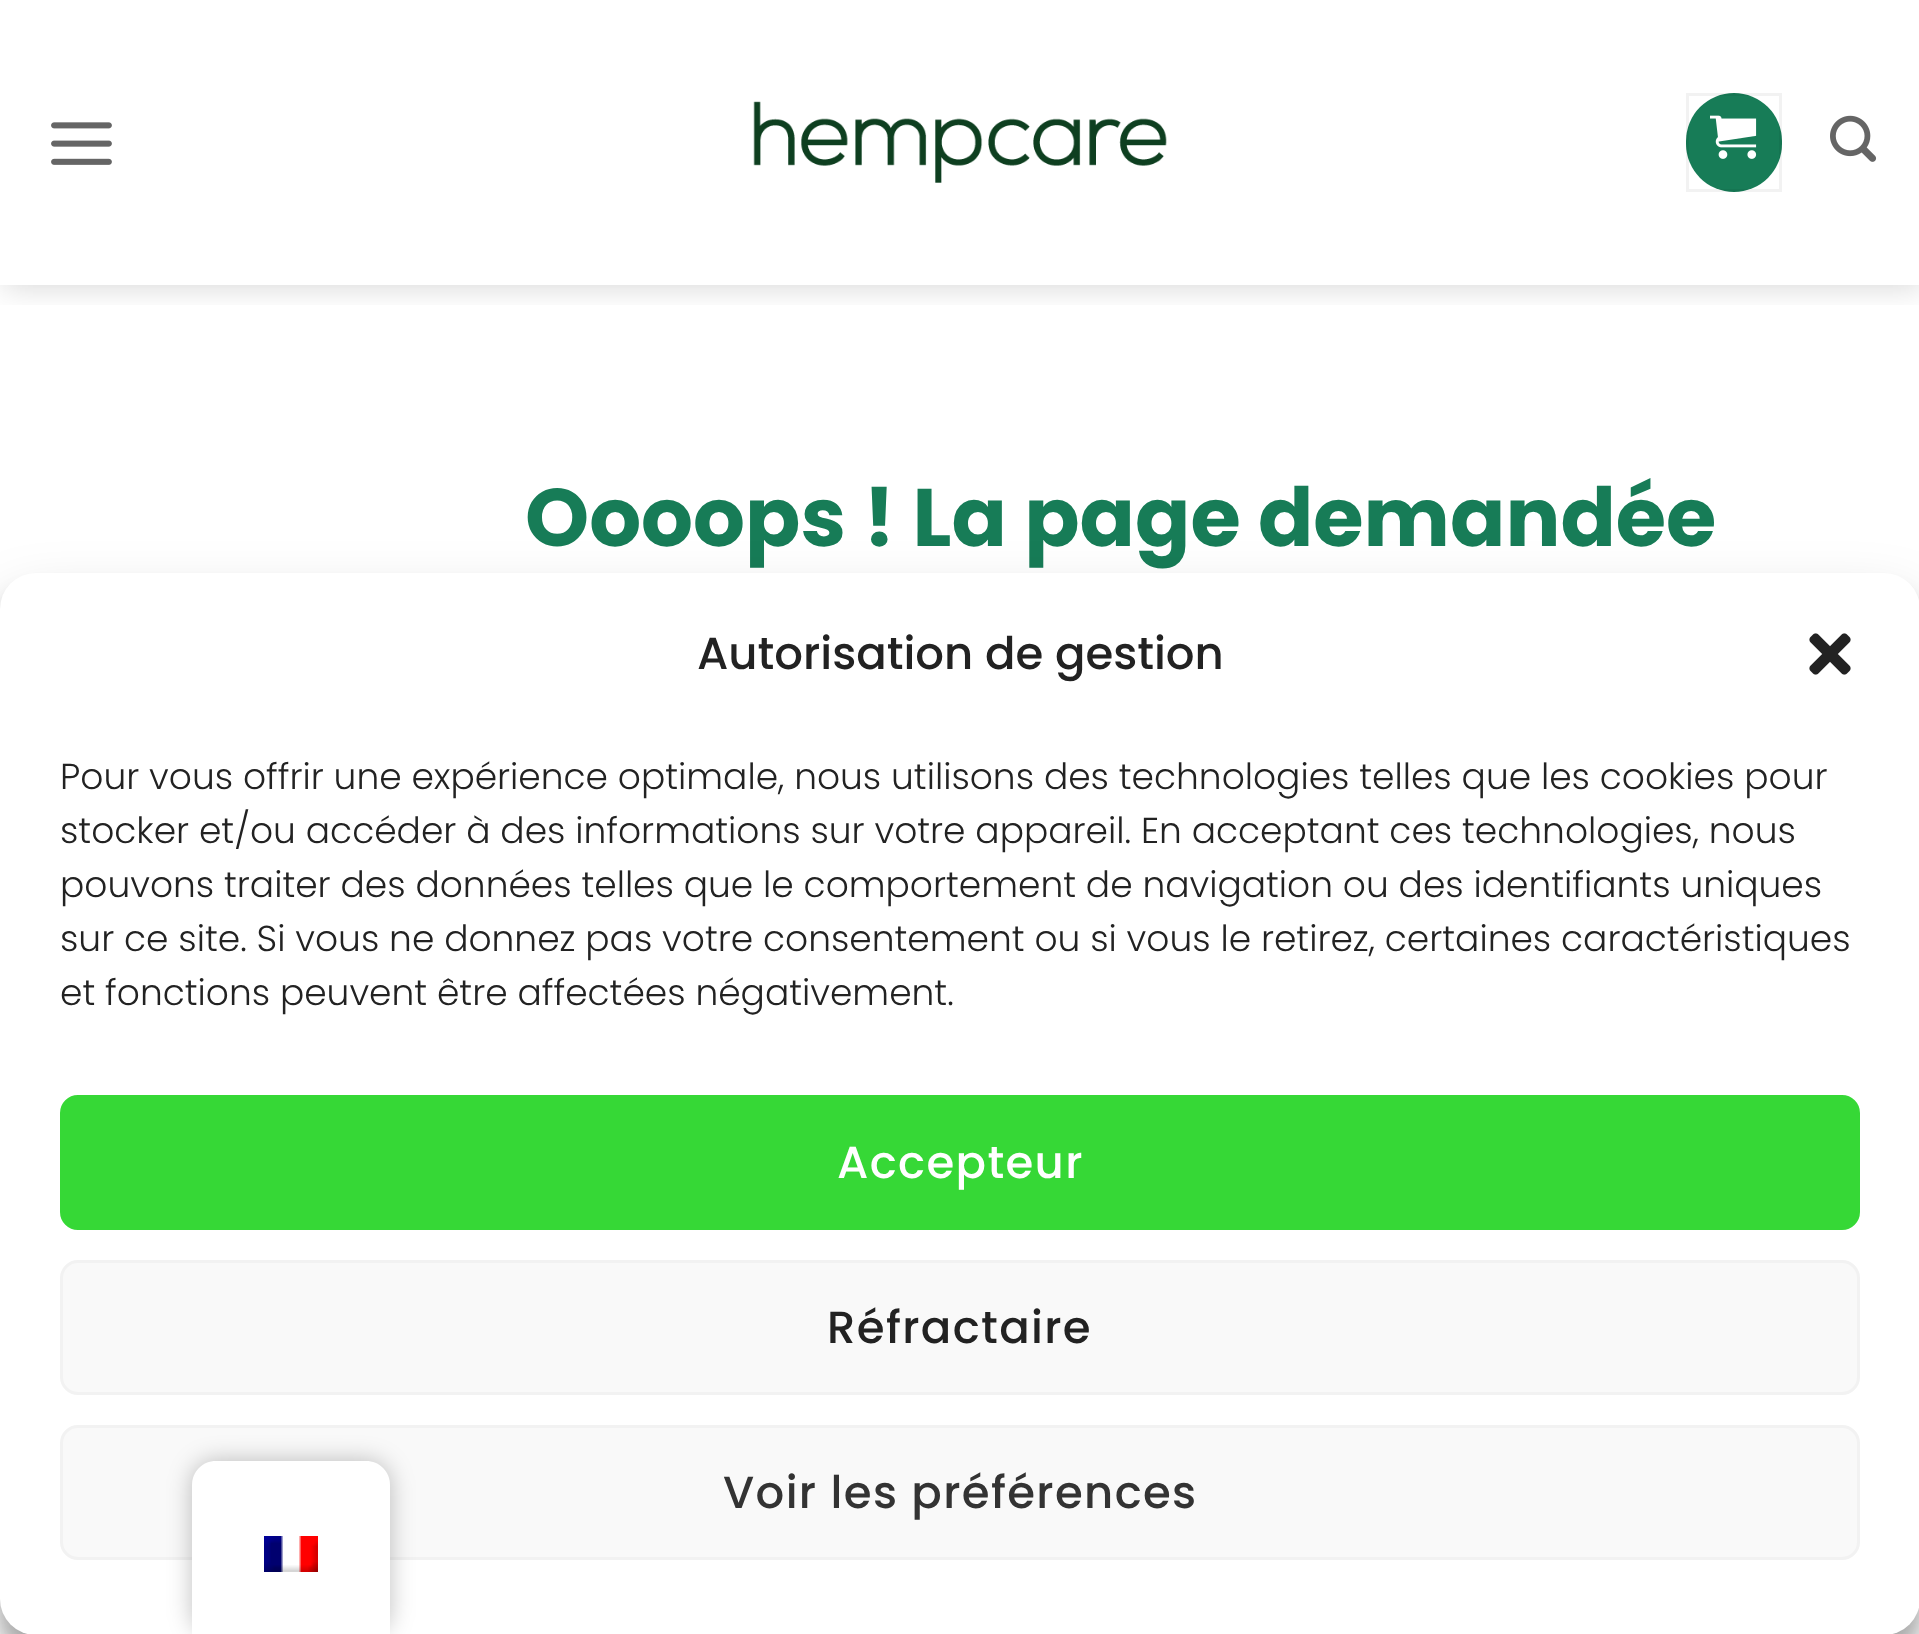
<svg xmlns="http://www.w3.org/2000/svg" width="1919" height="1634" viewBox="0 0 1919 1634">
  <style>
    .t1 { font: bold 81.6px Poppins; fill: #177c57; }
    .t2 { font: 500 45px Poppins; fill: #222; }
    .t3 { font: 300 36px Poppins; fill: #222; }
    .t4 { font: 500 45px Poppins; letter-spacing: 1.35px; fill: #fff; }
    .t5 { font: 500 45px Poppins; letter-spacing: 1.35px; fill: #222; }
    .t6 { font: 500 45px Poppins; letter-spacing: 1.35px; fill: #333; }
  </style>
  <defs>
    <clipPath id="clip1"><rect x="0" y="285" width="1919" height="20"/></clipPath>
  </defs>
  <rect width="100%" height="100%" fill="#fff"/>
  <g clip-path="url(#clip1)">
    <rect x="3" y="3" width="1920" height="285" fill="#00000026" filter="blur(15px)"/>
  </g>
  <image x="51" y="122" width="61" height="43" href="images/1.png"/>
  <image x="753" y="101" width="414" height="82" href="images/2.png"/>
  <rect x="1686" y="93" width="96" height="99" rx="48" fill="#177c57"/>
  <rect x="1687.5" y="94.5" width="93" height="96" fill="none" stroke="#0000000d" stroke-width="3"/>
  <image x="1710" y="115" width="47" height="44" href="images/3.png"/>
  <image x="1830" y="115" width="47" height="47" href="images/4.png"/>
  <text x="525" y="546" class="t1">Oooops ! La page demandée</text>
  <rect x="0" y="591" width="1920" height="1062" rx="36" fill="#0000003b" filter="blur(9px)"/>
  <rect x="0" y="603" width="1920" height="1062" rx="36" fill="#00000030" filter="blur(30px)"/>
  <rect x="0" y="573" width="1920" height="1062" rx="36" fill="#fff"/>
  <text x="697" y="669" class="t2">Autorisation de gestion</text>
  <image x="1809" y="633" width="42" height="42" href="images/5.png"/>
  <text x="60" y="789" class="t3">Pour vous offrir une expérience optimale, nous utilisons des technologies telles que les cookies pour</text>
  <text x="60" y="843" class="t3">stocker et/ou accéder à des informations sur votre appareil. En acceptant ces technologies, nous</text>
  <text x="60" y="897" class="t3">pouvons traiter des données telles que le comportement de navigation ou des identifiants uniques</text>
  <text x="60" y="951" class="t3">sur ce site. Si vous ne donnez pas votre consentement ou si vous le retirez, certaines caractéristiques</text>
  <text x="60" y="1005" class="t3">et fonctions peuvent être affectées négativement.</text>
  <rect x="61.5" y="1096.5" width="1797" height="132" rx="16.5" fill="#36d836" stroke="#36d836" stroke-width="3"/>
  <text x="837" y="1178" class="t4">Accepteur</text>
  <rect x="61.5" y="1261.5" width="1797" height="132" rx="16.5" fill="#f9f9f9" stroke="#f2f2f2" stroke-width="3"/>
  <text x="827" y="1343" class="t5">Réfractaire</text>
  <rect x="61.5" y="1426.5" width="1797" height="132" rx="16.5" fill="#f9f9f9" stroke="#f2f2f2" stroke-width="3"/>
  <text x="723" y="1508" class="t6">Voir les préférences</text>
  <rect x="192" y="1461" width="198" height="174" rx="24" fill="#00000040" filter="blur(12px)"/>
  <path d="M216 1461H366C379.5 1461 390 1471.5 390 1485V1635H192V1485C192 1471.5 202.5 1461 216 1461Z" fill="#fff"/>
  <image x="264" y="1536" width="54" height="36" href="images/6.png"/>
</svg>
